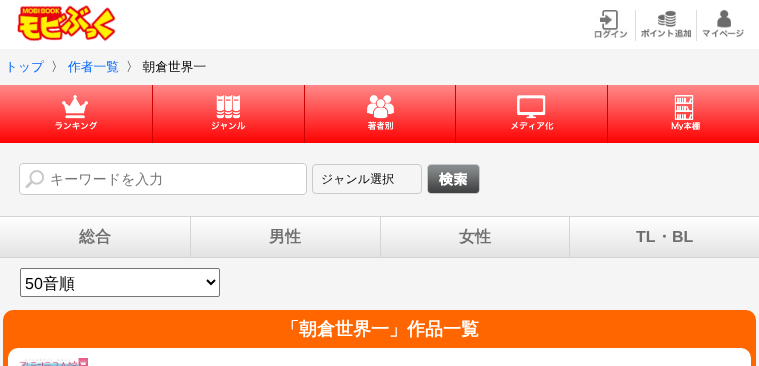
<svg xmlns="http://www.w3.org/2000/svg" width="759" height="366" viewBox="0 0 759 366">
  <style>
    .t1 { font: 500 12.75px WenQuanYi Zen Hei; fill: #06f; }
    .t2 { font: 500 12.75px WenQuanYi Zen Hei; fill: #000; }
    .t3 { font: 500 14px WenQuanYi Zen Hei; fill: #757575; }
    .t4 { font: 500 12px WenQuanYi Zen Hei; fill: #000; }
    .t5 { font: bold 16px WenQuanYi Zen Hei; fill: #6f6f6f; }
    .t6 { font: bold 16px Liberation Sans; fill: #6f6f6f; }
    .t7 { font: 16px Liberation Sans; fill: #000; }
    .t8 { font: 500 16px WenQuanYi Zen Hei; fill: #000; }
    .t9 { font: bold 18px WenQuanYi Zen Hei; fill: #fff; }
  </style>
  <defs>
    <linearGradient id="g1" gradientUnits="userSpaceOnUse" x1="380" y1="85" x2="380" y2="143"><stop offset="0" stop-color="#ff8989"/><stop offset="1" stop-color="#ff0101"/></linearGradient>
    <linearGradient id="g2" gradientUnits="userSpaceOnUse" x1="95" y1="217" x2="95" y2="257"><stop offset="0" stop-color="#fff"/><stop offset="0.99" stop-color="#e3e3e3"/></linearGradient>
    <linearGradient id="g3" gradientUnits="userSpaceOnUse" x1="286" y1="217" x2="286" y2="257"><stop offset="0" stop-color="#fff"/><stop offset="0.99" stop-color="#e3e3e3"/></linearGradient>
    <linearGradient id="g4" gradientUnits="userSpaceOnUse" x1="475" y1="217" x2="475" y2="257"><stop offset="0" stop-color="#fff"/><stop offset="0.99" stop-color="#e3e3e3"/></linearGradient>
    <linearGradient id="g5" gradientUnits="userSpaceOnUse" x1="665" y1="217" x2="665" y2="257"><stop offset="0" stop-color="#fff"/><stop offset="0.99" stop-color="#e3e3e3"/></linearGradient>
  </defs>
  <rect width="100%" height="100%" fill="#f5f5f5"/>
  <rect x="0" y="0" width="759" height="49" fill="#fff"/>
  <image x="16" y="5" width="100" height="36" href="images/1.png"/>
  <image x="592" y="10" width="37" height="28" href="images/2.png"/>
  <rect x="635" y="10" width="1" height="31" fill="#ddd"/>
  <image x="641" y="10" width="50" height="28" href="images/3.png"/>
  <rect x="696" y="10" width="1" height="31" fill="#ddd"/>
  <image x="702" y="10" width="42" height="28" href="images/4.png"/>
  <text x="5" y="71" class="t1">トップ</text>
  <text x="51" y="71" class="t2">〉</text>
  <text x="68" y="71" class="t1">作者一覧</text>
  <text x="126" y="71" class="t2">〉 朝倉世界一</text>
  <rect x="0" y="85" width="759" height="58" fill="url(#g1)"/>
  <image x="55" y="95" width="43" height="35" href="images/5.png"/>
  <rect x="152" y="85" width="1" height="58" fill="#cd0303"/>
  <image x="211" y="95" width="35" height="35" href="images/6.png"/>
  <rect x="304" y="85" width="1" height="58" fill="#cd0303"/>
  <image x="367" y="95" width="27" height="35" href="images/7.png"/>
  <rect x="455" y="85" width="1" height="58" fill="#cd0303"/>
  <image x="511" y="95" width="43" height="35" href="images/8.png"/>
  <rect x="607" y="85" width="1" height="58" fill="#cd0303"/>
  <image x="671" y="95" width="29" height="35" href="images/9.png"/>
  <rect x="19" y="163" width="288" height="32" rx="4" fill="#fff"/>
  <image x="25" y="170" width="19" height="18" href="images/10.png"/>
  <rect x="19.5" y="163.5" width="287" height="31" rx="3.5" fill="none" stroke="#cacaca"/>
  <text x="50" y="184" class="t3">キーワードを入力</text>
  <rect x="312.5" y="164.5" width="109" height="29" rx="3.5" fill="none" stroke="#cacaca"/>
  <text x="321" y="183" class="t4">ジャンル選択</text>
  <image x="427" y="164" width="53" height="30" href="images/11.png"/>
  <rect x="0" y="216" width="759" height="1" fill="#d4d4d4"/>
  <rect x="0" y="257" width="759" height="1" fill="#d4d4d4"/>
  <rect x="0" y="217" width="190" height="40" fill="url(#g2)"/>
  <text x="79" y="242" class="t5">総合</text>
  <rect x="191" y="217" width="189" height="40" fill="url(#g3)"/>
  <rect x="190" y="217" width="1" height="40" fill="#d4d4d4"/>
  <text x="269" y="242" class="t5">男性</text>
  <rect x="381" y="217" width="188" height="40" fill="url(#g4)"/>
  <rect x="380" y="217" width="1" height="40" fill="#d4d4d4"/>
  <text x="459" y="242" class="t5">女性</text>
  <rect x="570" y="217" width="189" height="40" fill="url(#g5)"/>
  <rect x="569" y="217" width="1" height="40" fill="#d4d4d4"/>
  <text x="636" y="242" class="t6">TL</text>
  <text x="656" y="242" class="t5">・</text>
  <text x="672" y="242" class="t6">BL</text>
  <rect x="20.5" y="268.5" width="199" height="28" rx="1.5" fill="#fff" stroke="#767676"/>
  <path d="M207 280L211 284L215 280" fill="none" stroke="#000" stroke-width="2"/>
  <text x="25" y="289" class="t7">50</text>
  <text x="43" y="289" class="t8">音順</text>
  <rect x="3" y="310" width="753" height="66" rx="10" fill="#f60"/>
  <text x="281" y="335" class="t9">「朝倉世界一」作品一覧</text>
  <rect x="8" y="348" width="743" height="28" rx="10" fill="#fff"/>
  <image x="18" y="358" width="70" height="8" href="images/12.png"/>
</svg>
